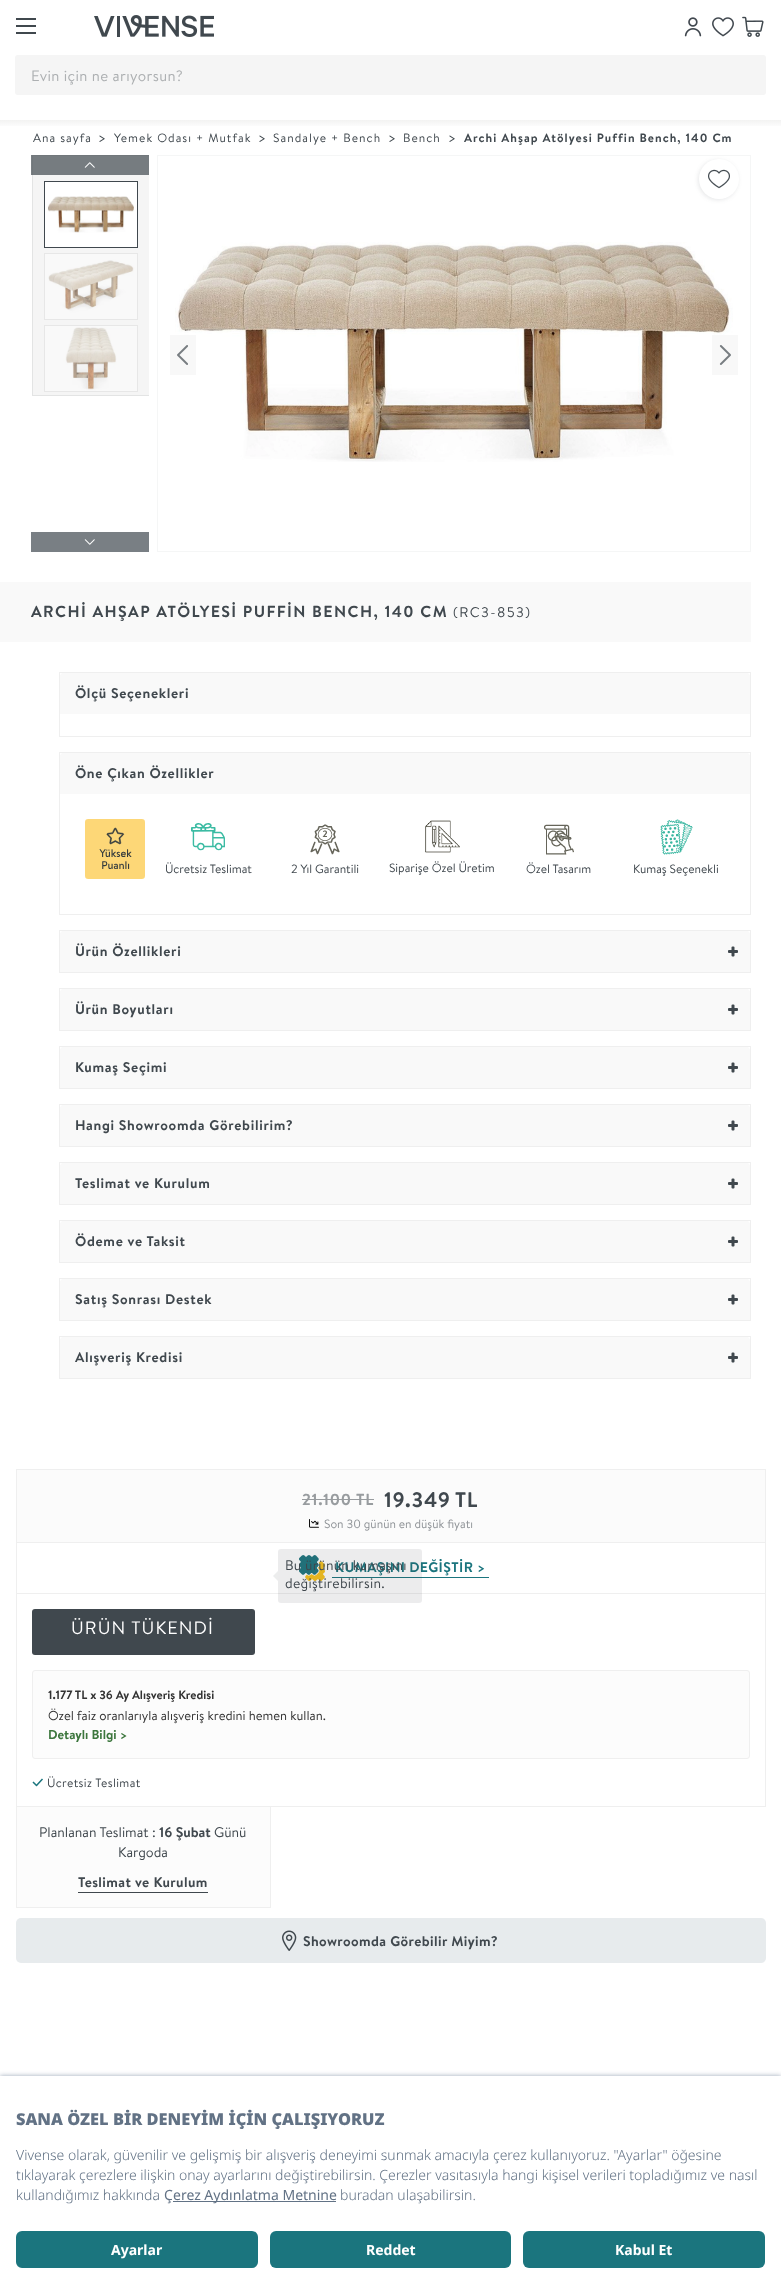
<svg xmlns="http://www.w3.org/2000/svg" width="781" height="2284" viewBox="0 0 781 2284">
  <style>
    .t1 { font: 15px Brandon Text; letter-spacing: 0.4px; fill: #adb0b2; }
    .t2 { font: 12px Brandon Text; letter-spacing: 1.05px; fill: #40484e; }
    .t3 { font: 14px Brandon Grotesque; fill: #40484e; }
    .t4 { font: bold 12px Brandon Text; letter-spacing: 1.05px; fill: #40484e; }
    .t5 { font: bold 16px Brandon Text; letter-spacing: 1.4px; fill: #40484e; }
    .t6 { font: 14px Brandon Text; letter-spacing: 1.4px; fill: #40484e; }
    .t7 { font: bold 14px Brandon Text; letter-spacing: 0.7px; fill: #40484e; }
    .t8 { font: 12px Brandon Text; fill: #40484e; }
    .t9 { font: bold 16px Brandon Text; letter-spacing: 0.75px; fill: #989c9f; }
    .t10 { font: bold 21px Brandon Text; letter-spacing: 0.75px; fill: #40484e; }
    .t11 { font: 12px Brandon Text; fill: #8f9397; }
    .t12 { font: bold 14px Brandon Text; letter-spacing: 0.4px; fill: #1b757e; }
    .t13 { font: 14px Brandon Text; letter-spacing: 0.25px; fill: #40484e; }
    .t14 { font: 18px Brandon Text; letter-spacing: 1.1px; fill: #fff; }
    .t15 { font: bold 12px Brandon Text; fill: #333; }
    .t16 { font: 13px Brandon Text; fill: #333; }
    .t17 { font: bold 13px Brandon Text; fill: #3c763d; }
    .t18 { font: 12px Brandon Text; letter-spacing: 0.4px; fill: #40484e; }
    .t19 { font: 14px Brandon Text; fill: #40484e; }
    .t20 { font: bold 14px Brandon Text; fill: #40484e; }
    .t21 { font: bold 14px Brandon Text; letter-spacing: 0.4px; fill: #40484e; }
    .t22 { font: 900 16.4px Noto Sans; fill: #627285; }
    .t23 { font: 300 14px Noto Sans; fill: #627285; }
    .t24 { font: 14px Noto Sans; fill: #627285; }
    .t25 { font: bold 14px Noto Sans; fill: #fff; }
  </style>
  <defs>
    <linearGradient id="g1" gradientUnits="userSpaceOnUse" x1="391" y1="128" x2="391" y2="120"><stop offset="0" stop-color="#fff"/><stop offset="1" stop-color="#f3f3f2"/></linearGradient>
    <clipPath id="clip1"><rect x="31" y="155" width="118" height="397"/></clipPath>
  </defs>
  <rect width="100%" height="100%" fill="#fff"/>
  <rect x="16" y="25" width="20" height="2" fill="#40484e"/>
  <rect x="16" y="18" width="20" height="2" fill="#40484e"/>
  <rect x="16" y="32" width="20" height="2" fill="#40484e"/>
  <image x="94" y="15" width="120" height="22" href="images/1.png"/>
  <image x="684" y="17" width="18" height="20" href="images/2.png"/>
  <image x="712" y="17" width="22" height="20" href="images/3.png"/>
  <image x="742" y="16" width="22" height="21" href="images/4.png"/>
  <rect x="15" y="55" width="751" height="40" rx="3" fill="#f5f5f5"/>
  <text x="31" y="81" class="t1">Evin için ne arıyorsun?</text>
  <rect x="0" y="120" width="781" height="6" fill="url(#g1)"/>
  <text x="33" y="142" class="t2">Ana sayfa</text>
  <text x="99" y="142" class="t3">&gt;</text>
  <text x="114" y="142" class="t2">Yemek Odası + Mutfak</text>
  <text x="259" y="142" class="t3">&gt;</text>
  <text x="273" y="142" class="t2">Sandalye + Bench</text>
  <text x="389" y="142" class="t3">&gt;</text>
  <text x="403" y="142" class="t2">Bench</text>
  <text x="449" y="142" class="t3">&gt;</text>
  <text x="464" y="142" class="t4">Archi Ahşap Atölyesi Puffin Bench, 140 Cm</text>
  <rect x="33" y="156" width="116" height="239" fill="#f5f5f5"/>
  <g clip-path="url(#clip1)">
    <rect x="32.5" y="155.5" width="117" height="240" fill="none" stroke="#e3e4e4"/>
  </g>
  <rect x="31" y="155" width="118" height="20" fill="#40484fb3"/>
  <image x="84" y="162" width="11" height="6" href="images/5.png"/>
  <rect x="44.5" y="181.5" width="93" height="66" fill="#fff" stroke="#40484e"/>
  <image x="47" y="196" width="87" height="37" href="images/6.png"/>
  <rect x="44.5" y="253.5" width="93" height="66" fill="#f1f1f1" stroke="#e7e7e7"/>
  <image x="45" y="254" width="92" height="65" href="images/7.png"/>
  <rect x="44.5" y="325.5" width="93" height="66" fill="#f1f1f1" stroke="#e7e7e7"/>
  <image x="45" y="326" width="92" height="65" href="images/8.png"/>
  <rect x="31" y="532" width="118" height="20" fill="#797f84"/>
  <image x="84" y="539" width="11" height="6" href="images/9.png"/>
  <rect x="157.5" y="155.5" width="593" height="396" fill="none" stroke="#f5f6f6"/>
  <rect x="698" y="160" width="40" height="40" rx="20" fill="#40484e21" filter="blur(2px)"/>
  <circle cx="719" cy="179" r="20" fill="#fff"/>
  <image x="708" y="169" width="22" height="20" href="images/10.png"/>
  <image x="175" y="242" width="558" height="220" href="images/11.png"/>
  <rect x="170" y="335" width="26" height="40" fill="#f5f5f5b3"/>
  <image x="177" y="345" width="11" height="20" href="images/12.png"/>
  <rect x="712" y="335" width="26" height="40" fill="#f5f5f5b3"/>
  <image x="719" y="345" width="12" height="20" href="images/13.png"/>
  <rect x="31" y="582" width="720" height="60" fill="#f9f9f9"/>
  <text x="31" y="617" class="t5">ARCHİ AHŞAP ATÖLYESİ PUFFİN BENCH, 140 CM</text>
  <rect x="0" y="582" width="31" height="60" fill="#f9f9f9"/>
  <text x="453" y="617" class="t6">(RC3-853)</text>
  <rect x="59.5" y="672.5" width="691" height="64" fill="none" stroke="#efefef"/>
  <path d="M63 673H747C748.5 673 750 674.5 750 676V714H60V676C60 674.5 61.5 673 63 673Z" fill="#f9f9f9"/>
  <text x="75" y="698" class="t7">Ölçü Seçenekleri</text>
  <rect x="59.5" y="752.5" width="691" height="162" fill="none" stroke="#efefef"/>
  <path d="M63 753H747C748.5 753 750 754.5 750 756V794H60V756C60 754.5 61.5 753 63 753Z" fill="#f9f9f9"/>
  <text x="75" y="778" class="t7">Öne Çıkan Özellikler</text>
  <image x="85" y="819" width="60" height="60" href="images/14.png"/>
  <image x="191" y="823" width="34" height="28" href="images/15.png"/>
  <text x="165" y="873" class="t8">Ücretsiz Teslimat</text>
  <image x="310" y="824" width="30" height="31" href="images/16.png"/>
  <text x="291" y="873" class="t8">2 Yıl Garantili</text>
  <image x="425" y="820" width="35" height="33" href="images/17.png"/>
  <text x="389" y="872" class="t8">Siparişe Özel Üretim</text>
  <image x="544" y="824" width="30" height="31" href="images/18.png"/>
  <text x="526" y="873" class="t8">Özel Tasarım</text>
  <image x="660" y="819" width="33" height="36" href="images/19.png"/>
  <text x="633" y="873" class="t8">Kumaş Seçenekli</text>
  <rect x="59.5" y="930.5" width="691" height="42" fill="none" stroke="#efefef"/>
  <path d="M63 931H747C748.5 931 750 932.5 750 934V972H60V934C60 932.5 61.5 931 63 931Z" fill="#f9f9f9"/>
  <text x="75" y="956" class="t7">Ürün Özellikleri</text>
  <image x="728" y="946" width="10" height="11" href="images/20.png"/>
  <rect x="59.5" y="988.5" width="691" height="42" fill="none" stroke="#efefef"/>
  <path d="M63 989H747C748.5 989 750 990.5 750 992V1030H60V992C60 990.5 61.5 989 63 989Z" fill="#f9f9f9"/>
  <text x="75" y="1014" class="t7">Ürün Boyutları</text>
  <image x="728" y="1004" width="10" height="11" href="images/20.png"/>
  <rect x="59.5" y="1046.5" width="691" height="42" fill="none" stroke="#efefef"/>
  <path d="M63 1047H747C748.5 1047 750 1048.5 750 1050V1088H60V1050C60 1048.5 61.5 1047 63 1047Z" fill="#f9f9f9"/>
  <text x="75" y="1072" class="t7">Kumaş Seçimi</text>
  <image x="728" y="1062" width="10" height="11" href="images/20.png"/>
  <rect x="59.5" y="1104.5" width="691" height="42" fill="none" stroke="#efefef"/>
  <path d="M63 1105H747C748.5 1105 750 1106.5 750 1108V1146H60V1108C60 1106.5 61.5 1105 63 1105Z" fill="#f9f9f9"/>
  <text x="75" y="1130" class="t7">Hangi Showroomda Görebilirim?</text>
  <image x="728" y="1120" width="10" height="11" href="images/20.png"/>
  <rect x="59.5" y="1162.5" width="691" height="42" fill="none" stroke="#efefef"/>
  <path d="M63 1163H747C748.5 1163 750 1164.5 750 1166V1204H60V1166C60 1164.5 61.5 1163 63 1163Z" fill="#f9f9f9"/>
  <text x="75" y="1188" class="t7">Teslimat ve Kurulum</text>
  <image x="728" y="1178" width="10" height="11" href="images/20.png"/>
  <rect x="59.5" y="1220.5" width="691" height="42" fill="none" stroke="#efefef"/>
  <path d="M63 1221H747C748.5 1221 750 1222.5 750 1224V1262H60V1224C60 1222.5 61.5 1221 63 1221Z" fill="#f9f9f9"/>
  <text x="75" y="1246" class="t7">Ödeme ve Taksit</text>
  <image x="728" y="1236" width="10" height="11" href="images/20.png"/>
  <rect x="59.5" y="1278.5" width="691" height="42" fill="none" stroke="#efefef"/>
  <path d="M63 1279H747C748.5 1279 750 1280.5 750 1282V1320H60V1282C60 1280.5 61.5 1279 63 1279Z" fill="#f9f9f9"/>
  <text x="75" y="1304" class="t7">Satış Sonrası Destek</text>
  <image x="728" y="1294" width="10" height="11" href="images/20.png"/>
  <rect x="59.5" y="1336.5" width="691" height="42" fill="none" stroke="#efefef"/>
  <path d="M63 1337H747C748.5 1337 750 1338.5 750 1340V1378H60V1340C60 1338.5 61.5 1337 63 1337Z" fill="#f9f9f9"/>
  <text x="75" y="1362" class="t7">Alışveriş Kredisi</text>
  <image x="728" y="1352" width="10" height="11" href="images/20.png"/>
  <rect x="16.5" y="1469.5" width="749" height="337" fill="none" stroke="#efefef"/>
  <rect x="17" y="1470" width="748" height="72" fill="#fbfbfb"/>
  <rect x="17" y="1542" width="748" height="1" fill="#efefef"/>
  <text x="302" y="1505" class="t9">21.100</text>
  <text x="356" y="1505" class="t9">TL</text>
  <rect x="302" y="1499" width="72" height="1" fill="#989c9f"/>
  <text x="384" y="1507" class="t10">19.349</text>
  <text x="455" y="1507" class="t10">TL</text>
  <image x="309" y="1519" width="10" height="9" href="images/21.png"/>
  <text x="324" y="1528" class="t11">Son 30 günün en düşük fiyatı</text>
  <rect x="17" y="1593" width="748" height="1" fill="#efefef"/>
  <image x="299" y="1555" width="26" height="26" href="images/22.png"/>
  <rect x="332" y="1577" width="157" height="1" fill="#1b757e"/>
  <text x="335" y="1572" class="t12">KUMAŞINI DEĞİŞTİR &gt;</text>
  <rect x="278" y="1549" width="144" height="54" rx="3" fill="#40484e1a"/>
  <path d="M278 1571V1581L273 1576Z" fill="#eceded"/>
  <text x="285" y="1570" class="t13">Bu ürünün kumaşını</text>
  <text x="285" y="1588" class="t13">değiştirebilirsin.</text>
  <rect x="32" y="1609" width="223" height="46" rx="3" fill="#40484e"/>
  <text x="71" y="1634" class="t14">ÜRÜN TÜKENDİ</text>
  <rect x="32.5" y="1670.5" width="717" height="88" rx="2.5" fill="#fcfcfc" stroke="#efefef"/>
  <text x="48" y="1699" class="t15">1.177 TL x 36 Ay Alışveriş Kredisi</text>
  <text x="48" y="1720" class="t16">Özel faiz oranlarıyla alışveriş kredini hemen kullan.</text>
  <text x="48" y="1739" class="t17">Detaylı Bilgi &gt;</text>
  <path d="M33 1782L36.5 1785.5L42.5 1779" fill="none" stroke="#1b757e" stroke-width="1.5" stroke-linejoin="round"/>
  <text x="47" y="1787" class="t18">Ücretsiz Teslimat</text>
  <rect x="17" y="1807" width="253" height="100" fill="#fcfcfc"/>
  <rect x="270" y="1807" width="1" height="101" fill="#efefef"/>
  <rect x="16" y="1907" width="255" height="1" fill="#efefef"/>
  <rect x="16" y="1807" width="1" height="101" fill="#efefef"/>
  <text x="39" y="1837" class="t19">Planlanan Teslimat :</text>
  <text x="159" y="1837" class="t20">16 Şubat</text>
  <text x="214" y="1837" class="t19">Günü</text>
  <text x="118" y="1857" class="t19">Kargoda</text>
  <text x="78" y="1887" class="t21">Teslimat ve Kurulum</text>
  <rect x="78" y="1892" width="130" height="1" fill="#40484e"/>
  <rect x="16" y="1918" width="750" height="45" rx="5" fill="#e7ebed"/>
  <image x="282" y="1930" width="15" height="21" href="images/23.png"/>
  <text x="303" y="1946" class="t21">Showroomda Görebilir Miyim?</text>
  <rect x="0" y="2076" width="781" height="208" fill="#9ba7b7" filter="blur(2.5px)"/>
  <rect x="0" y="2076" width="781" height="208" fill="#fff"/>
  <text x="16" y="2125" class="t22">SANA ÖZEL BİR DENEYİM İÇİN ÇALIŞIYORUZ</text>
  <text x="16" y="2160" class="t23">Vivense olarak, güvenilir ve gelişmiş bir alışveriş deneyimi sunmak amacıyla çerez kullanıyoruz. "Ayarlar" öğesine</text>
  <text x="16" y="2180" class="t23">tıklayarak çerezlere ilişkin onay ayarlarını değiştirebilirsin. Çerezler vasıtasıyla hangi kişisel verileri topladığımız ve nasıl</text>
  <text x="16" y="2200" class="t23">kullandığımız hakkında</text>
  <text x="164" y="2200" class="t24">Ç</text>
  <rect x="173" y="2201" width="163" height="1" fill="#627285"/>
  <text x="173" y="2200" class="t24">erez Aydınlatma Metnine</text>
  <text x="340" y="2200" class="t23">buradan ulaşabilirsin.</text>
  <rect x="16" y="2231" width="242" height="37" rx="6" fill="#1b757e"/>
  <text x="111" y="2255" class="t25">Ayarlar</text>
  <rect x="270" y="2231" width="241" height="37" rx="6" fill="#1b757e"/>
  <text x="366" y="2255" class="t25">Reddet</text>
  <rect x="523" y="2231" width="242" height="37" rx="6" fill="#1b757e"/>
  <text x="615" y="2255" class="t25">Kabul Et</text>
</svg>
